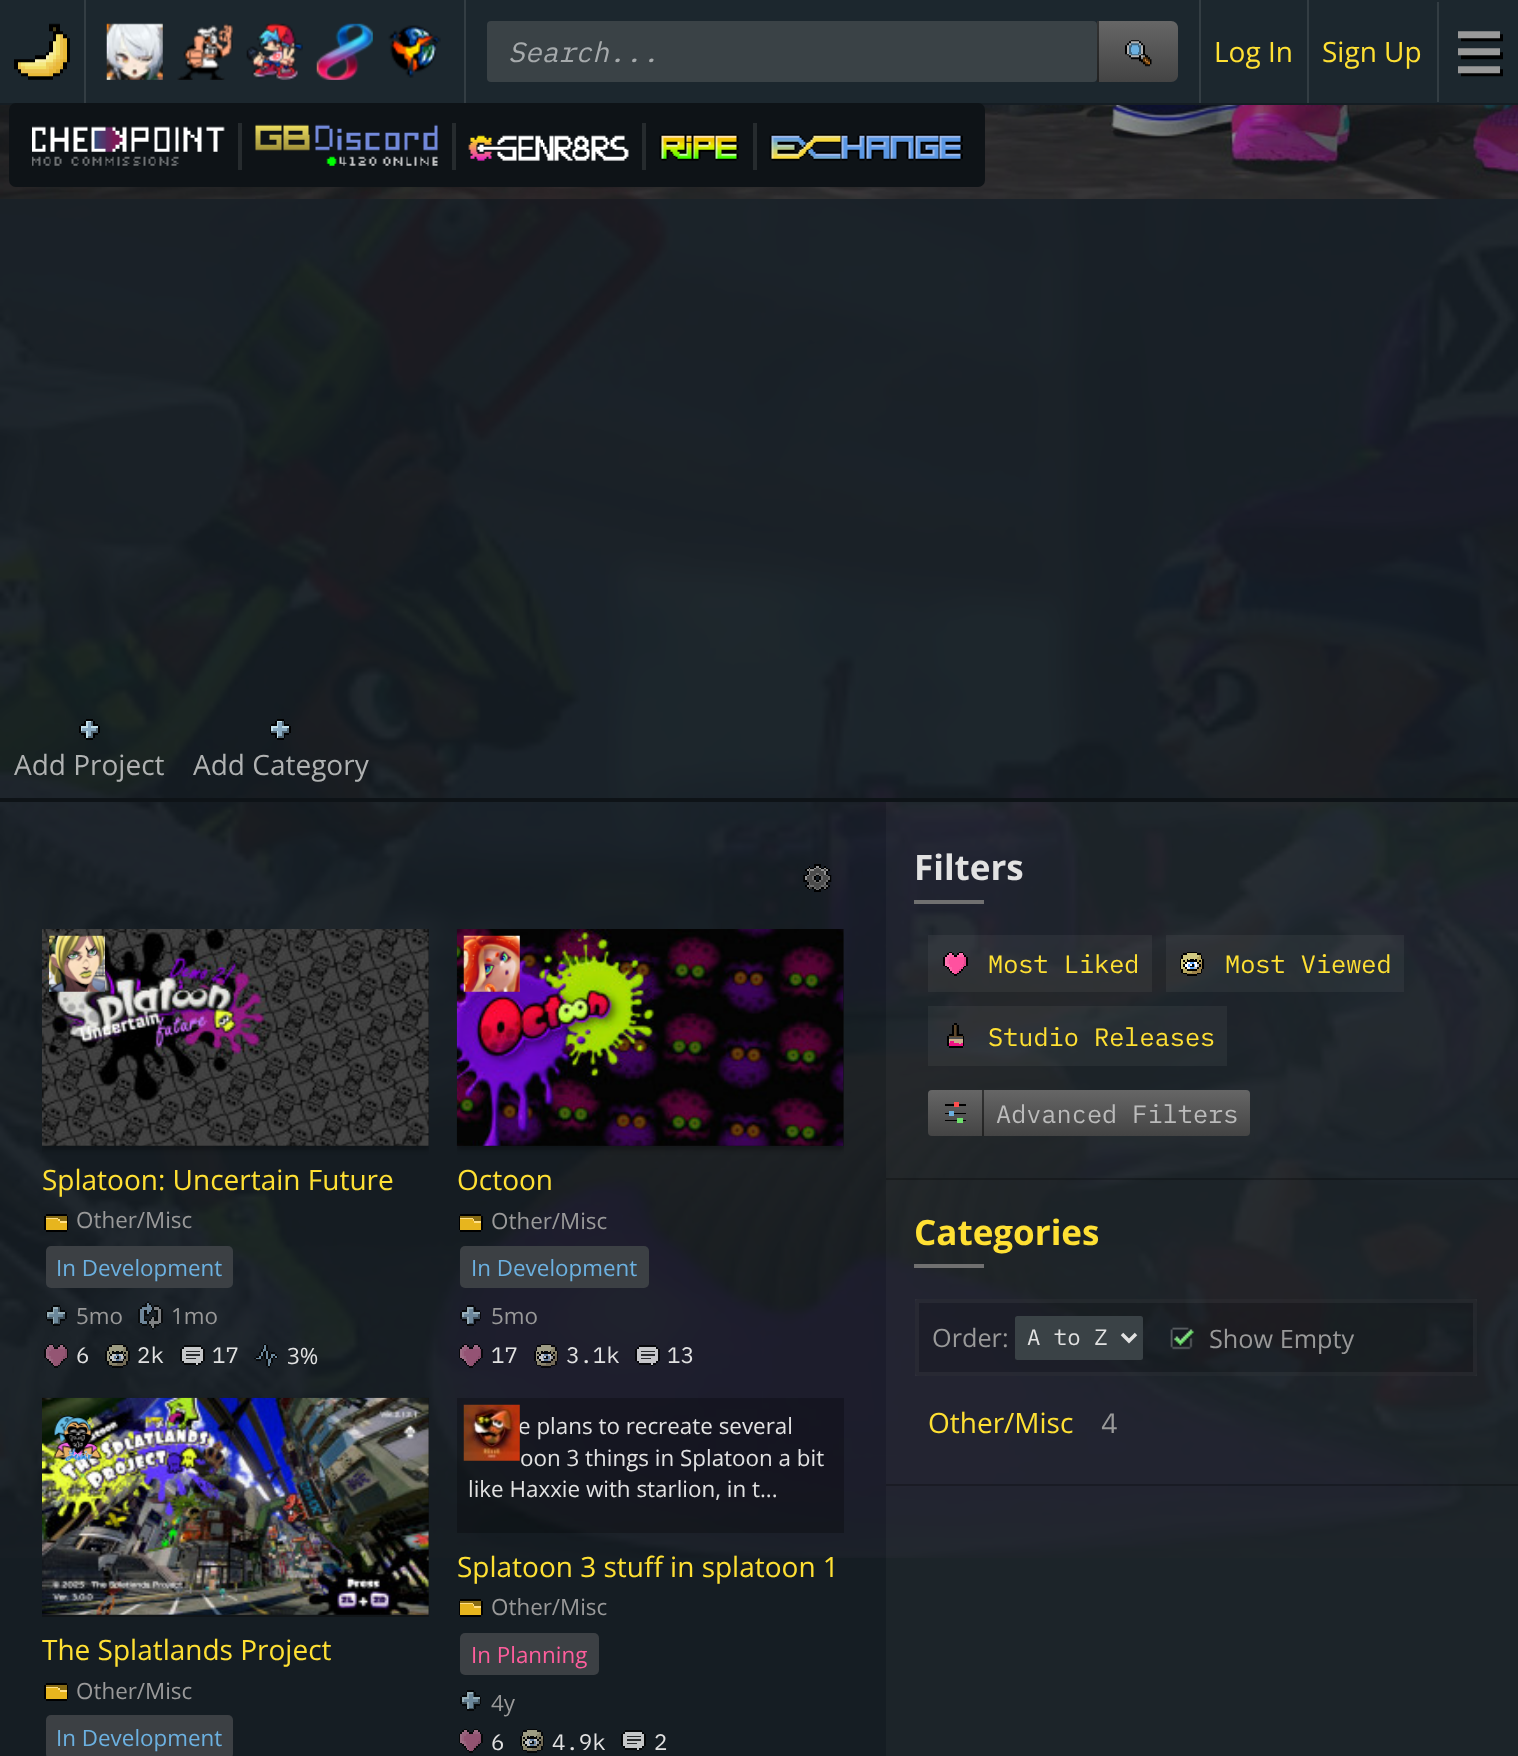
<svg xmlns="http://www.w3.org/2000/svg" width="1518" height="1756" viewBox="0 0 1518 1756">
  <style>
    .t1 { font: italic 28px IBM Plex Mono; fill: #a6aaac; }
    .t2 { font: 28px Open Sans; fill: #ffe033; }
    .t3 { font: 28px Open Sans; fill: #b0b2b2; }
    .t4 { font: 22.4px Open Sans; fill: #999; }
    .t5 { font: 22.4px Open Sans; fill: #6cb1e1; }
    .t6 { font: 22.4px IBM Plex Mono; fill: #e2e2e2; }
    .t7 { font: 22.4px Open Sans; fill: #e2e2e2; }
    .t8 { font: 22.4px Open Sans; fill: #ff5e9d; }
    .t9 { font: bold 35px Open Sans; fill: #e2e2e2; }
    .t10 { font: 25.25px IBM Plex Mono; fill: #ffe033; }
    .t11 { font: 25.25px IBM Plex Mono; fill: #bbb; }
    .t12 { font: bold 35px Open Sans; fill: #ffe033; }
    .t13 { font: 25.25px Open Sans; fill: #999; }
    .t14 { font: 28px IBM Plex Mono; fill: #999; }
  </style>
  <defs>
    <linearGradient id="g1" gradientUnits="userSpaceOnUse" x1="1138" y1="21" x2="1138" y2="82"><stop offset="0" stop-color="#666"/><stop offset="1" stop-color="#444"/></linearGradient>
    <clipPath id="clip1"><rect x="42" y="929" width="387" height="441"/></clipPath>
    <clipPath id="clip2"><rect x="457" y="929" width="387" height="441"/></clipPath>
    <linearGradient id="g2" gradientUnits="userSpaceOnUse" x1="1089" y1="1090" x2="1089" y2="1136"><stop offset="0" stop-color="#666"/><stop offset="1" stop-color="#444"/></linearGradient>
  </defs>
  <rect width="100%" height="100%" fill="#151d23"/>
  <rect x="0" y="0" width="1518" height="103" fill="#1c272e"/>
  <image x="14" y="23" width="56" height="57" href="images/1.png"/>
  <rect x="84" y="0" width="2" height="103" fill="#333d43"/>
  <image x="106" y="23" width="57" height="57" href="images/2.png"/>
  <image x="177" y="23" width="56" height="57" href="images/3.png"/>
  <image x="246" y="23" width="57" height="57" href="images/4.png"/>
  <image x="316" y="23" width="57" height="57" href="images/5.png"/>
  <image x="388" y="25" width="53" height="53" href="images/6.png"/>
  <rect x="464" y="0" width="2" height="103" fill="#333d43"/>
  <rect x="487" y="21" width="610" height="61" rx="4" fill="#3a4246"/>
  <text x="508" y="62" class="t1">Search...</text>
  <path d="M1097 21H1171C1175 21 1178 24 1178 28V75C1178 79 1175 82 1171 82H1097Z" fill="url(#g1)"/>
  <rect x="1097" y="21" width="2" height="61" fill="#00000080"/>
  <image x="1125" y="40" width="27" height="27" href="images/7.png"/>
  <rect x="1199" y="0" width="2" height="103" fill="#333d43"/>
  <text x="1214" y="62" class="t2">Log In</text>
  <rect x="1307" y="0" width="2" height="103" fill="#333d43"/>
  <text x="1322" y="62" class="t2">Sign Up</text>
  <rect x="1437" y="2" width="2" height="100" fill="#333d43"/>
  <image x="1458" y="31" width="45" height="46" href="images/8.png"/>
  <image x="0" y="105" width="1518" height="1453" href="images/9.png"/>
  <image x="0" y="105" width="1518" height="94" href="images/10.png"/>
  <rect x="0" y="798" width="1518" height="4" fill="#0e1317"/>
  <image x="79" y="719" width="21" height="21" href="images/11.png"/>
  <text x="14" y="775" class="t3">Add Project</text>
  <image x="270" y="719" width="21" height="21" href="images/12.png"/>
  <text x="193" y="775" class="t3">Add Category</text>
  <image x="803" y="864" width="29" height="28" href="images/13.png"/>
  <g clip-path="url(#clip1)">
    <rect x="42" y="933" width="387" height="217" fill="#00000040" filter="blur(2px)"/>
  </g>
  <rect x="42" y="929" width="387" height="217" fill="#0d0d0d80"/>
  <image x="42" y="929" width="387" height="217" href="images/14.png"/>
  <image x="49" y="935" width="56" height="57" href="images/15.png"/>
  <text x="42" y="1190" class="t2">Splatoon: Uncertain Future</text>
  <image x="44" y="1214" width="24" height="18" href="images/16.png"/>
  <text x="76" y="1228" class="t4">Other/Misc</text>
  <rect x="46" y="1246" width="187" height="42" rx="5" fill="#3c4044"/>
  <text x="56" y="1276" class="t5">In Development</text>
  <image x="46" y="1305" width="21" height="21" href="images/17.png"/>
  <text x="76" y="1324" class="t4">5mo</text>
  <image x="138" y="1301" width="25" height="29" href="images/18.png"/>
  <text x="171" y="1324" class="t4">1mo</text>
  <image x="44" y="1344" width="24" height="24" href="images/19.png"/>
  <text x="76" y="1363" class="t6">6</text>
  <image x="105" y="1344" width="25" height="24" href="images/20.png"/>
  <text x="137" y="1363" class="t6">2k</text>
  <image x="180" y="1345" width="25" height="21" href="images/21.png"/>
  <text x="212" y="1363" class="t6">17</text>
  <image x="254" y="1344" width="24" height="24" href="images/22.png"/>
  <text x="287" y="1364" class="t7">3%</text>
  <g clip-path="url(#clip2)">
    <rect x="457" y="933" width="387" height="217" fill="#00000040" filter="blur(2px)"/>
  </g>
  <rect x="457" y="929" width="387" height="217" fill="#0d0d0d80"/>
  <image x="456" y="929" width="388" height="217" href="images/23.png"/>
  <image x="463" y="935" width="57" height="57" href="images/24.png"/>
  <text x="457" y="1190" class="t2">Octoon</text>
  <image x="459" y="1214" width="24" height="18" href="images/25.png"/>
  <text x="491" y="1229" class="t4">Other/Misc</text>
  <rect x="460" y="1246" width="189" height="42" rx="5" fill="#3c4044"/>
  <text x="471" y="1276" class="t5">In Development</text>
  <image x="460" y="1305" width="21" height="21" href="images/26.png"/>
  <text x="491" y="1324" class="t4">5mo</text>
  <image x="459" y="1344" width="24" height="24" href="images/27.png"/>
  <text x="491" y="1363" class="t6">17</text>
  <image x="534" y="1344" width="24" height="24" href="images/28.png"/>
  <text x="566" y="1363" class="t6">3.1k</text>
  <image x="635" y="1345" width="25" height="21" href="images/29.png"/>
  <text x="667" y="1363" class="t6">13</text>
  <rect x="42" y="1398" width="387" height="219" fill="#0d0d0d80"/>
  <image x="42" y="1397" width="387" height="218" href="images/30.png"/>
  <image x="53" y="1415" width="49" height="46" href="images/31.png"/>
  <text x="42" y="1660" class="t2">The Splatlands Project</text>
  <image x="44" y="1683" width="24" height="18" href="images/32.png"/>
  <text x="76" y="1699" class="t4">Other/Misc</text>
  <rect x="46" y="1715" width="187" height="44" rx="5" fill="#3c4044"/>
  <text x="56" y="1746" class="t5">In Development</text>
  <rect x="457" y="1398" width="387" height="135" fill="#00000040"/>
  <text x="518" y="1434" class="t7">e plans to recreate several</text>
  <image x="463" y="1404" width="57" height="57" href="images/33.png"/>
  <text x="520" y="1466" class="t7">oon 3 things in Splatoon a bit</text>
  <text x="468" y="1497" class="t7">like Haxxie with starlion, in t...</text>
  <text x="457" y="1577" class="t2">Splatoon 3 stuff in splatoon 1</text>
  <image x="459" y="1599" width="24" height="18" href="images/34.png"/>
  <text x="491" y="1615" class="t4">Other/Misc</text>
  <rect x="460" y="1633" width="139" height="42" rx="5" fill="#3c4044"/>
  <text x="471" y="1663" class="t8">In Planning</text>
  <image x="460" y="1690" width="21" height="21" href="images/35.png"/>
  <text x="491" y="1711" class="t4">4y</text>
  <image x="459" y="1729" width="24" height="24" href="images/36.png"/>
  <text x="491" y="1750" class="t6">6</text>
  <image x="520" y="1729" width="24" height="24" href="images/37.png"/>
  <text x="552" y="1750" class="t6">4.9k</text>
  <image x="621" y="1730" width="25" height="21" href="images/38.png"/>
  <text x="654" y="1750" class="t6">2</text>
  <rect x="886" y="802" width="632" height="954" fill="#ffffff08"/>
  <rect x="886" y="1178" width="632" height="2" fill="#00000040"/>
  <text x="914" y="880" class="t9">Filters</text>
  <rect x="914" y="900" width="70" height="4" fill="#707070"/>
  <rect x="928" y="935" width="224" height="57" fill="#ffffff0d"/>
  <image x="943" y="952" width="25" height="24" href="images/39.png"/>
  <text x="988" y="973" class="t10">Most Liked</text>
  <rect x="1166" y="935" width="238" height="57" fill="#ffffff0d"/>
  <image x="1180" y="952" width="24" height="24" href="images/40.png"/>
  <text x="1225" y="973" class="t10">Most Viewed</text>
  <rect x="928" y="1006" width="299" height="60" fill="#ffffff0d"/>
  <image x="947" y="1023" width="17" height="25" href="images/41.png"/>
  <text x="988" y="1046" class="t10">Studio Releases</text>
  <rect x="928" y="1090" width="322" height="46" rx="4" fill="url(#g2)"/>
  <image x="945" y="1102" width="21" height="21" href="images/42.png"/>
  <rect x="982" y="1090" width="2" height="46" fill="#00000080"/>
  <text x="996" y="1123" class="t11">Advanced Filters</text>
  <rect x="886" y="1484" width="632" height="2" fill="#00000040"/>
  <text x="914" y="1245" class="t12">Categories</text>
  <rect x="914" y="1264" width="70" height="4" fill="#707070"/>
  <rect x="915" y="1299" width="562" height="77" rx="4" fill="#00000026"/>
  <rect x="917" y="1301" width="558" height="73" fill="none" stroke="#ffffff0d" stroke-width="4"/>
  <text x="932" y="1347" class="t13">Order:</text>
  <rect x="1015" y="1316" width="128" height="44" rx="2.5" fill="#3a4246"/>
  <path d="M1122 1334L1129 1341L1136 1334" fill="none" stroke="#e2e2e2" stroke-width="3.5"/>
  <text x="1027" y="1345" class="t6">A to Z</text>
  <image x="1170" y="1327" width="24" height="23" href="images/43.png"/>
  <text x="1209" y="1348" class="t13">Show Empty</text>
  <text x="928" y="1433" class="t2">Other/Misc</text>
  <text x="1101" y="1433" class="t14">4</text>
  <rect x="9" y="103" width="976" height="84" rx="7" fill="#0e1317"/>
  <image x="32" y="126" width="193" height="40" href="images/44.png"/>
  <rect x="238" y="123" width="4" height="47" fill="#262b2e"/>
  <image x="255" y="124" width="183" height="27" href="images/45.png"/>
  <image x="326" y="156" width="11" height="10" href="images/46.png"/>
  <image x="339" y="156" width="8" height="10" href="images/47.png"/>
  <image x="349" y="156" width="7" height="10" href="images/48.png"/>
  <image x="358" y="156" width="9" height="10" href="images/49.png"/>
  <image x="368" y="156" width="9" height="10" href="images/50.png"/>
  <image x="382" y="156" width="56" height="10" href="images/51.png"/>
  <rect x="452" y="123" width="4" height="47" fill="#262b2e"/>
  <image x="468" y="135" width="161" height="26" href="images/52.png"/>
  <rect x="642" y="123" width="4" height="47" fill="#262b2e"/>
  <image x="659" y="134" width="80" height="27" href="images/53.png"/>
  <rect x="753" y="123" width="4" height="47" fill="#262b2e"/>
  <image x="769" y="134" width="194" height="27" href="images/54.png"/>
</svg>
